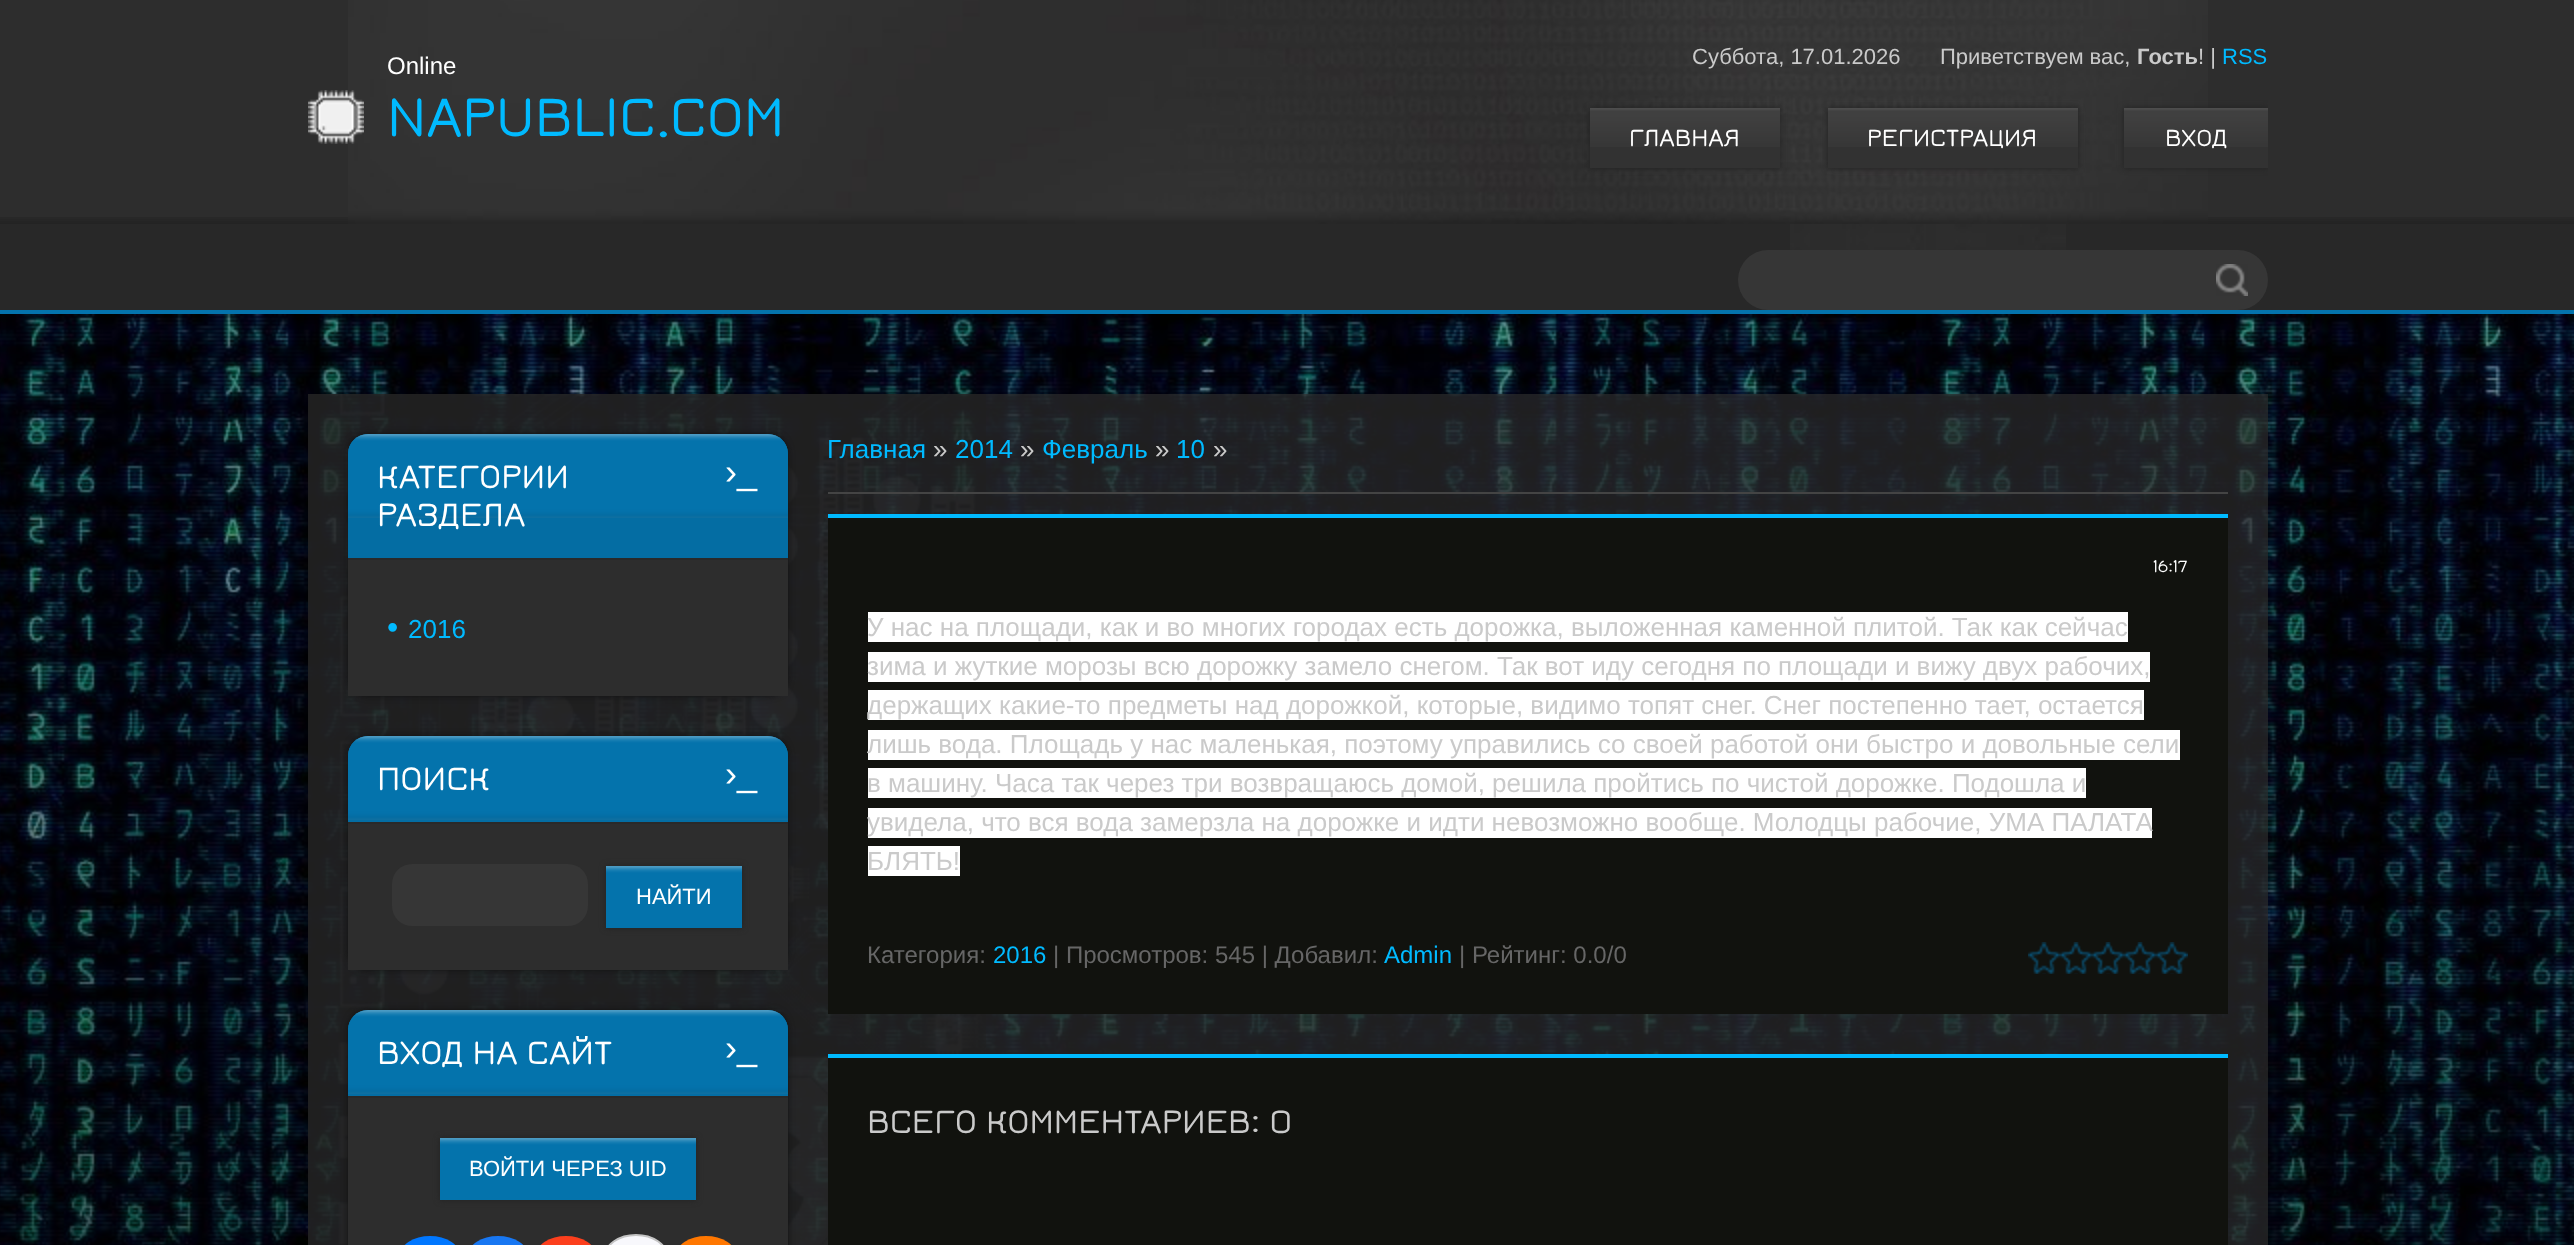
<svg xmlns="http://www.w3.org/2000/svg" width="2574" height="1245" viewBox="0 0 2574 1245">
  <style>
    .t1 { font: 24px Liberation Sans; fill: #fff; }
    .t2 { font: 600 60px Jura; fill: #00baff; }
    .t3 { font: 22px Liberation Sans; fill: #cacaca; }
    .t4 { font: bold 22px Liberation Sans; fill: #cacaca; }
    .t5 { font: 22px Liberation Sans; fill: #00baff; }
    .t6 { font: 600 26px Jura; fill: #fff; }
    .t7 { font: 600 36px Jura; fill: #fff; }
    .t8 { font: 36px Liberation Sans; fill: #fff; }
    .t9 { font: 32px Liberation Sans; fill: #00baff; }
    .t10 { font: 26px Liberation Sans; fill: #00baff; }
    .t11 { font: 22px Liberation Sans; fill: #fff; }
    .t12 { font: 26px Liberation Sans; fill: #cacaca; }
    .t13 { font: 600 18px Jura; fill: #fff; }
    .t14 { font: 24px Liberation Sans; fill: #666; }
    .t15 { font: 24px Liberation Sans; fill: #00baff; }
    .t16 { font: 600 36px Jura; fill: #cacaca; }
  </style>
  <defs>
    <clipPath id="clip1"><rect x="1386" y="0" width="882" height="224"/></clipPath>
  </defs>
  <rect width="100%" height="100%" fill="#2d2d2d"/>
  <image x="0" y="217" width="2574" height="7" href="images/1.png"/>
  <image x="348" y="0" width="1860" height="224" href="images/2.png"/>
  <image x="308" y="90" width="56" height="54" href="images/3.png"/>
  <text x="387" y="74" class="t1">Online</text>
  <text x="387" y="136" class="t2">NAPUBLIC.COM</text>
  <text x="1692" y="64" class="t3">Суббота, 17.01.2026</text>
  <text x="1940" y="64" class="t3">Приветствуем вас,</text>
  <text x="2137" y="64" class="t4">Гость</text>
  <text x="2198" y="64" class="t3">! |</text>
  <text x="2222" y="64" class="t5">RSS</text>
  <rect x="1590" y="108" width="190" height="60" fill="#222" filter="blur(3px)"/>
  <rect x="1590" y="147" width="190" height="21" fill="#323232"/>
  <image x="1590" y="108" width="190" height="39" href="images/4.png"/>
  <text x="1629" y="146" class="t6">ГЛАВНАЯ</text>
  <rect x="1828" y="108" width="250" height="60" fill="#222" filter="blur(3px)"/>
  <rect x="1828" y="147" width="250" height="21" fill="#323232"/>
  <image x="1828" y="108" width="250" height="39" href="images/5.png"/>
  <text x="1867" y="146" class="t6">РЕГИСТРАЦИЯ</text>
  <g clip-path="url(#clip1)">
    <rect x="2124" y="108" width="144" height="60" fill="#222" filter="blur(3px)"/>
  </g>
  <rect x="2124" y="147" width="144" height="21" fill="#323232"/>
  <image x="2124" y="108" width="144" height="39" href="images/6.png"/>
  <text x="2165" y="146" class="t6">ВХОД</text>
  <rect x="0" y="224" width="2574" height="86" fill="#282828"/>
  <rect x="0" y="310" width="2574" height="4" fill="#0473ac"/>
  <image x="1790" y="224" width="276" height="26" href="images/7.png"/>
  <rect x="1738" y="250" width="530" height="60" rx="30" fill="#363636"/>
  <image x="2216" y="264" width="32" height="32" href="images/8.png"/>
  <image x="0" y="314" width="2574" height="931" href="images/9.png"/>
  <image x="308" y="394" width="678" height="851" href="images/10.png"/>
  <rect x="308" y="394" width="1960" height="851" fill="#2c2c2cb3"/>
  <rect x="348" y="434" width="440" height="262" rx="20" fill="#111" filter="blur(3px)"/>
  <path d="M368 434H768C779 434 788 443 788 454V696H348V454C348 443 357 434 368 434Z" fill="#2d2d2d"/>
  <path d="M368 434H768C779 434 788 443 788 454V560H348V454C348 443 357 434 368 434Z" fill="#046da3"/>
  <image x="348" y="434" width="440" height="84" href="images/11.png"/>
  <rect x="348" y="558" width="440" height="2" fill="#292929"/>
  <text x="377" y="488" class="t7">КАТЕГОРИИ</text>
  <text x="725" y="484" class="t8">›_</text>
  <text x="377" y="526" class="t7">РАЗДЕЛА</text>
  <text x="387" y="638" class="t9">•</text>
  <text x="408" y="638" class="t10">2016</text>
  <rect x="348" y="736" width="440" height="234" rx="20" fill="#111" filter="blur(3px)"/>
  <path d="M368 736H768C779 736 788 745 788 756V970H348V756C348 745 357 736 368 736Z" fill="#2d2d2d"/>
  <path d="M368 736H768C779 736 788 745 788 756V824H348V756C348 745 357 736 368 736Z" fill="#046da3"/>
  <image x="348" y="736" width="440" height="84" href="images/12.png"/>
  <rect x="348" y="822" width="440" height="2" fill="#292929"/>
  <text x="377" y="790" class="t7">ПОИСК</text>
  <text x="725" y="786" class="t8">›_</text>
  <rect x="392" y="864" width="196" height="62" rx="20" fill="#363636"/>
  <rect x="606" y="866" width="136" height="62" fill="#222" filter="blur(3px)"/>
  <image x="606" y="866" width="136" height="62" href="images/13.png"/>
  <text x="636" y="904" class="t11">НАЙТИ</text>
  <rect x="348" y="1010" width="440" height="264" rx="20" fill="#111" filter="blur(3px)"/>
  <path d="M368 1010H768C779 1010 788 1019 788 1030V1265H348V1030C348 1019 357 1010 368 1010Z" fill="#2d2d2d"/>
  <path d="M368 1010H768C779 1010 788 1019 788 1030V1098H348V1030C348 1019 357 1010 368 1010Z" fill="#046da3"/>
  <image x="348" y="1010" width="440" height="84" href="images/14.png"/>
  <rect x="348" y="1096" width="440" height="2" fill="#292929"/>
  <text x="377" y="1064" class="t7">ВХОД НА САЙТ</text>
  <text x="725" y="1060" class="t8">›_</text>
  <rect x="440" y="1138" width="256" height="62" fill="#222" filter="blur(3px)"/>
  <image x="440" y="1138" width="256" height="62" href="images/15.png"/>
  <text x="469" y="1176" class="t11">ВОЙТИ ЧЕРЕЗ UID</text>
  <rect x="400" y="1236" width="60" height="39" rx="30" fill="#07f"/>
  <rect x="468" y="1236" width="60" height="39" rx="30" fill="#1877f2"/>
  <rect x="536" y="1236" width="60" height="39" rx="30" fill="#fc3f1d"/>
  <rect x="605" y="1235" width="62" height="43" rx="31" fill="#f8f8fc" stroke="#c4c4c4" stroke-width="2"/>
  <rect x="676" y="1236" width="60" height="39" rx="30" fill="#f70"/>
  <text x="827" y="458" class="t10">Главная</text>
  <text x="933" y="458" class="t12">»</text>
  <text x="955" y="458" class="t10">2014</text>
  <text x="1020" y="458" class="t12">»</text>
  <text x="1042" y="458" class="t10">Февраль</text>
  <text x="1155" y="458" class="t12">»</text>
  <text x="1176" y="458" class="t10">10</text>
  <text x="1213" y="458" class="t12">»</text>
  <rect x="828" y="492" width="1400" height="2" fill="#444"/>
  <rect x="828" y="518" width="1400" height="496" fill="#11120e"/>
  <rect x="828" y="514" width="1400" height="4" fill="#00baff"/>
  <text x="2153" y="572" class="t13">16:17</text>
  <rect x="868" y="612" width="1260" height="30" fill="#fff"/>
  <text x="867" y="636" class="t12">У нас на площади, как и во многих городах есть дорожка, выложенная каменной плитой. Так как сейчас</text>
  <rect x="868" y="652" width="1282" height="30" fill="#fff"/>
  <text x="867" y="675" class="t12">зима и жуткие морозы всю дорожку замело снегом. Так вот иду сегодня по площади и вижу двух рабочих,</text>
  <rect x="868" y="690" width="1276" height="30" fill="#fff"/>
  <text x="867" y="714" class="t12">держащих какие-то предметы над дорожкой, которые, видимо топят снег. Снег постепенно тает, остается</text>
  <rect x="868" y="730" width="1312" height="30" fill="#fff"/>
  <text x="867" y="753" class="t12">лишь вода. Площадь у нас маленькая, поэтому управились со своей работой они быстро и довольные сели</text>
  <rect x="868" y="768" width="1218" height="30" fill="#fff"/>
  <text x="867" y="792" class="t12">в машину. Часа так через три возвращаюсь домой, решила пройтись по чистой дорожке. Подошла и</text>
  <rect x="868" y="808" width="1284" height="30" fill="#fff"/>
  <text x="867" y="831" class="t12">увидела, что вся вода замерзла на дорожке и идти невозможно вообще. Молодцы рабочие, УМА ПАЛАТА</text>
  <rect x="868" y="846" width="92" height="30" fill="#fff"/>
  <text x="867" y="870" class="t12">БЛЯТЬ!</text>
  <text x="867" y="963" class="t14">Категория:</text>
  <text x="993" y="963" class="t15">2016</text>
  <text x="1053" y="963" class="t14">| Просмотров: 545 | Добавил:</text>
  <text x="1384" y="963" class="t15">Admin</text>
  <text x="1459" y="963" class="t14">| Рейтинг: 0.0/0</text>
  <image x="2028" y="942" width="160" height="32" href="images/16.png"/>
  <rect x="828" y="1058" width="1400" height="187" fill="#11120e"/>
  <rect x="828" y="1054" width="1400" height="4" fill="#00baff"/>
  <text x="867" y="1133" class="t16">ВСЕГО КОММЕНТАРИЕВ: 0</text>
</svg>
